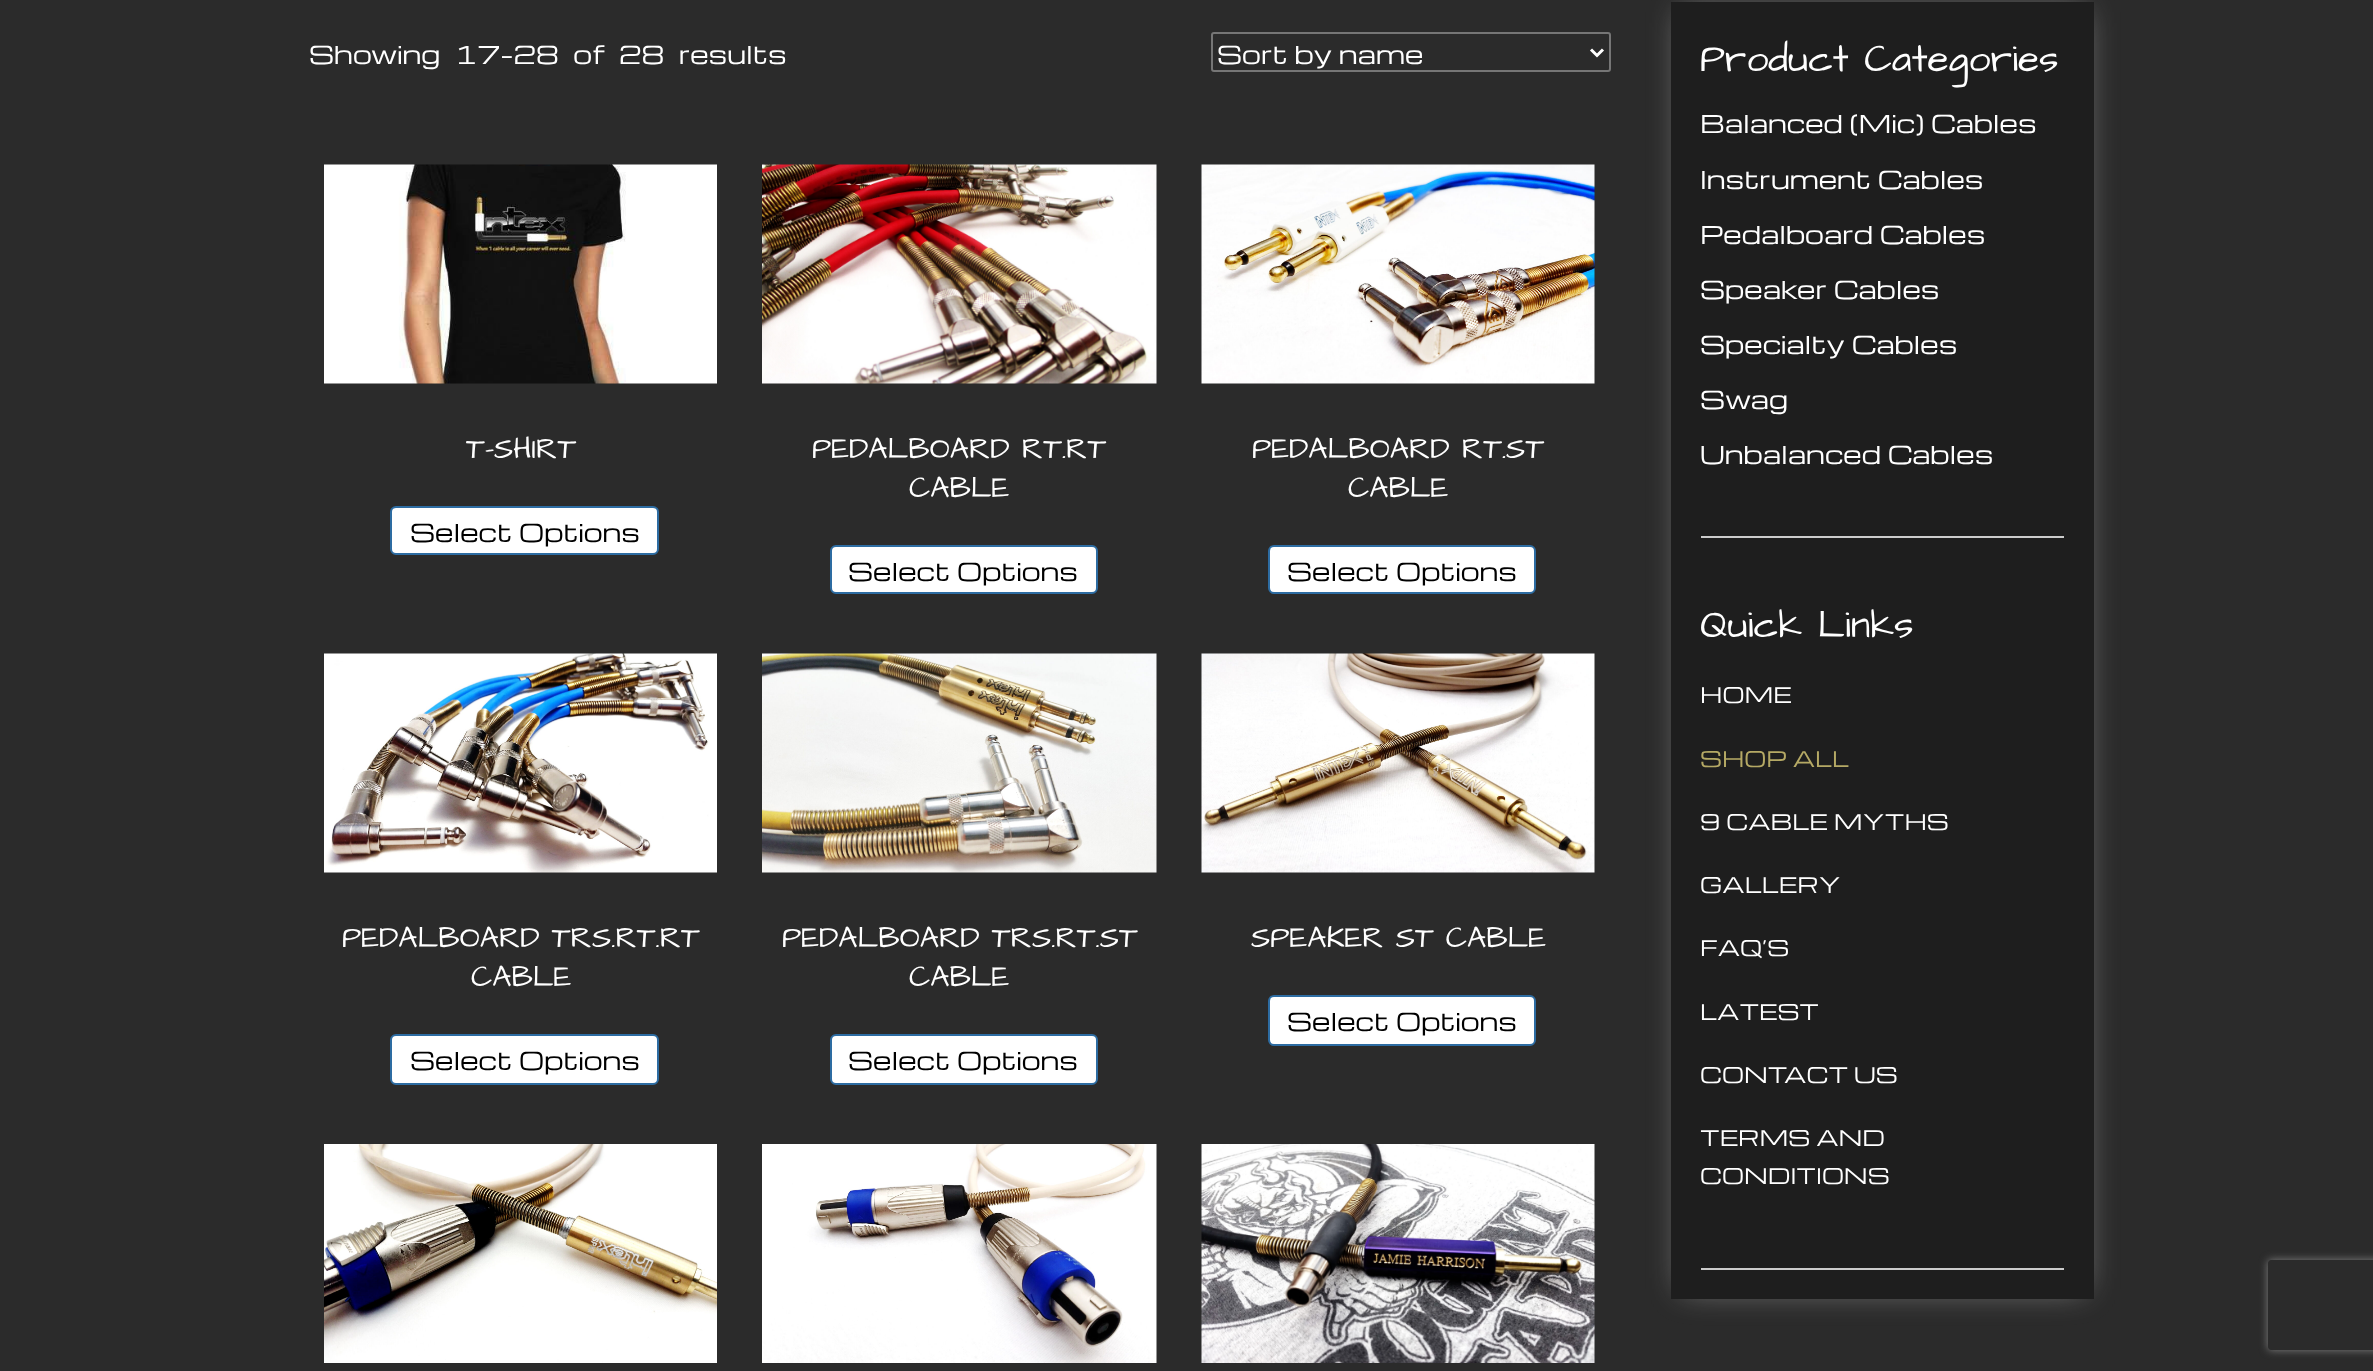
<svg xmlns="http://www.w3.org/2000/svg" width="2373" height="1371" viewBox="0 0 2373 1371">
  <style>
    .t1 { font: 24px Michroma; fill: #fff; }
    .t2 { font: 30px Architects Daughter; fill: #fff; }
    .t3 { font: 24px Michroma; fill: #000; }
    .t4 { font: 39px Architects Daughter; fill: #fff; }
    .t5 { font: 21px Michroma; fill: #fff; }
    .t6 { font: 21px Michroma; fill: #b5a965; }
  </style>
  <defs>
    <clipPath id="clip1"><path d="M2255 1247H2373V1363H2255ZM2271 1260H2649C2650.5 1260 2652 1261.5 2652 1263V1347C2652 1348.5 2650.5 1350 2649 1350H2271C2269.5 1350 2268 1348.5 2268 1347V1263C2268 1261.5 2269.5 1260 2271 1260Z" clip-rule="evenodd"/></clipPath>
  </defs>
  <rect width="100%" height="100%" fill="#2b2b2b"/>
  <text x="309" y="64" word-spacing="7.5" class="t1">Showing 17–28 of 28 results</text>
  <rect x="1212" y="33" width="398" height="38" rx="2" fill="none" stroke="#767676" stroke-width="2"/>
  <path d="M1591 49.5L1597 55.5L1603 49.5" fill="none" stroke="#fff" stroke-width="3"/>
  <text x="1217" y="64" class="t1">Sort by name</text>
  <image x="324" y="164" width="393" height="220" href="images/1.png"/>
  <text x="466" y="458" class="t2">T-SHIRT</text>
  <rect x="391" y="507" width="267" height="47" rx="5" fill="#fff" stroke="#2d6ca2" stroke-width="2"/>
  <text x="410" y="542" class="t3">Select Options</text>
  <image x="762" y="164" width="395" height="220" href="images/2.png"/>
  <text x="812" y="458" class="t2">PEDALBOARD RT.RT</text>
  <text x="909" y="497" class="t2">CABLE</text>
  <rect x="831" y="546" width="266" height="47" rx="5" fill="#fff" stroke="#2d6ca2" stroke-width="2"/>
  <text x="848" y="581" class="t3">Select Options</text>
  <image x="1201" y="164" width="394" height="220" href="images/3.png"/>
  <text x="1252" y="458" class="t2">PEDALBOARD RT.ST</text>
  <text x="1348" y="497" class="t2">CABLE</text>
  <rect x="1269" y="546" width="266" height="47" rx="5" fill="#fff" stroke="#2d6ca2" stroke-width="2"/>
  <text x="1287" y="581" class="t3">Select Options</text>
  <image x="324" y="653" width="393" height="220" href="images/4.png"/>
  <text x="342" y="947" class="t2">PEDALBOARD TRS.RT.RT</text>
  <text x="471" y="986" class="t2">CABLE</text>
  <rect x="391" y="1035" width="267" height="49" rx="5" fill="#fff" stroke="#2d6ca2" stroke-width="2"/>
  <text x="410" y="1070" class="t3">Select Options</text>
  <image x="762" y="653" width="395" height="220" href="images/5.png"/>
  <text x="782" y="947" class="t2">PEDALBOARD TRS.RT.ST</text>
  <text x="909" y="986" class="t2">CABLE</text>
  <rect x="831" y="1035" width="266" height="49" rx="5" fill="#fff" stroke="#2d6ca2" stroke-width="2"/>
  <text x="848" y="1070" class="t3">Select Options</text>
  <image x="1201" y="653" width="394" height="220" href="images/6.png"/>
  <text x="1251" y="947" class="t2">SPEAKER ST CABLE</text>
  <rect x="1269" y="996" width="266" height="49" rx="5" fill="#fff" stroke="#2d6ca2" stroke-width="2"/>
  <text x="1287" y="1031" class="t3">Select Options</text>
  <image x="324" y="1144" width="393" height="219" href="images/7.png"/>
  <image x="762" y="1144" width="395" height="219" href="images/8.png"/>
  <image x="1201" y="1144" width="394" height="219" href="images/9.png"/>
  <rect x="1682" y="12" width="402" height="1277" fill="#e8e8e880" filter="blur(16px)"/>
  <rect x="1671" y="2" width="423" height="1297" fill="#1e1e1e"/>
  <text x="1700" y="71" class="t4">Product Categories</text>
  <text x="1700" y="133" class="t1">Balanced (Mic) Cables</text>
  <text x="1700" y="189" class="t1">Instrument Cables</text>
  <text x="1700" y="244" class="t1">Pedalboard Cables</text>
  <text x="1700" y="299" class="t1">Speaker Cables</text>
  <text x="1700" y="354" class="t1">Specialty Cables</text>
  <text x="1700" y="409" class="t1">Swag</text>
  <text x="1700" y="464" class="t1">Unbalanced Cables</text>
  <rect x="1701" y="536" width="363" height="2" fill="#ccc"/>
  <text x="1700" y="637" class="t4">Quick Links</text>
  <text x="1700" y="703" class="t5">HOME</text>
  <text x="1700" y="767" class="t6">SHOP ALL</text>
  <text x="1700" y="830" class="t5">9 CABLE MYTHS</text>
  <text x="1700" y="893" class="t5">GALLERY</text>
  <text x="1700" y="956" class="t5">FAQ’S</text>
  <text x="1700" y="1020" class="t5">LATEST</text>
  <text x="1700" y="1083" class="t5">CONTACT US</text>
  <text x="1700" y="1146" class="t5">TERMS AND</text>
  <text x="1700" y="1184" class="t5">CONDITIONS</text>
  <rect x="1701" y="1268" width="363" height="2" fill="#ccc"/>
  <g clip-path="url(#clip1)">
    <rect x="2268" y="1260" width="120" height="90" rx="3" fill="#808080" filter="blur(4px)"/>
  </g>
</svg>
